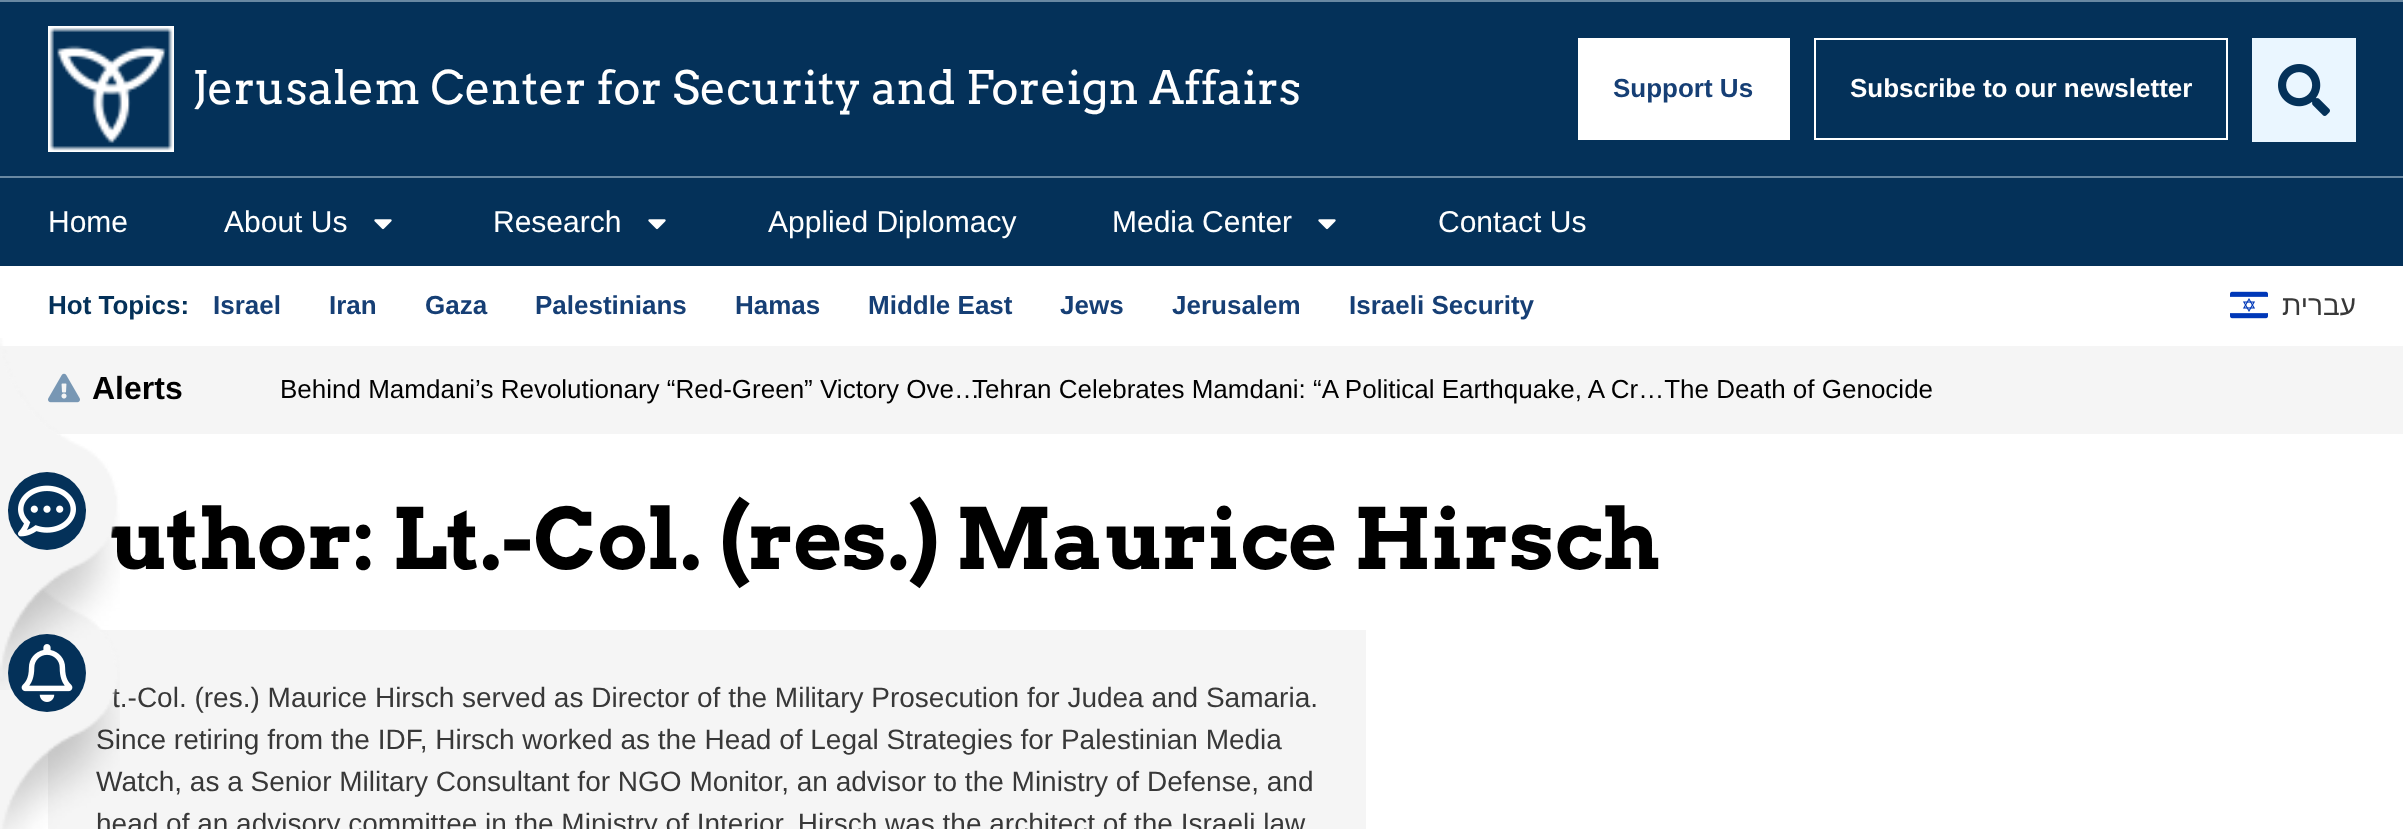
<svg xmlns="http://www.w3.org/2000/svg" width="2403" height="829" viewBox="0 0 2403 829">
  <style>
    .t1 { font: 46px Arvo; fill: #fff; }
    .t2 { font: bold 26px Liberation Sans; fill: #163f75; }
    .t3 { font: bold 26px Liberation Sans; fill: #fff; }
    .t4 { font: 30px Liberation Sans; fill: #fff; }
    .t5 { font: bold 26px Liberation Sans; fill: #043159; }
    .t6 { font: 28px Liberation Sans; direction: rtl; fill: #383838; }
    .t7 { font: bold 32px Liberation Sans; fill: #000; }
    .t8 { font: 26px Liberation Sans; fill: #000; }
    .t9 { font: bold 84px Arvo; fill: #000; }
    .t10 { font: 28px Liberation Sans; fill: #383838; }
  </style>
  <rect width="100%" height="100%" fill="#fff"/>
  <rect x="0" y="2" width="2403" height="174" fill="#043159"/>
  <rect x="0" y="0" width="2403" height="2" fill="#6988a2"/>
  <rect x="0" y="176" width="2403" height="2" fill="#6988a2"/>
  <image x="48" y="26" width="126" height="126" href="images/1.png"/>
  <text x="192" y="104" class="t1">Jerusalem Center for Security and Foreign Affairs</text>
  <rect x="1578" y="38" width="212" height="102" fill="#fff"/>
  <text x="1613" y="97" class="t2">Support Us</text>
  <rect x="1815" y="39" width="412" height="100" fill="none" stroke="#fff" stroke-width="2"/>
  <text x="1850" y="97" class="t3">Subscribe to our newsletter</text>
  <rect x="2252" y="38" width="104" height="104" fill="#eaf6ff"/>
  <image x="2278" y="64" width="52" height="52" href="images/2.png"/>
  <rect x="0" y="178" width="2403" height="88" fill="#043159"/>
  <text x="48" y="232" class="t4">Home</text>
  <text x="224" y="232" class="t4">About Us</text>
  <image x="374" y="219" width="18" height="11" href="images/3.png"/>
  <text x="493" y="232" class="t4">Research</text>
  <image x="648" y="219" width="18" height="11" href="images/3.png"/>
  <text x="768" y="232" class="t4">Applied Diplomacy</text>
  <text x="1112" y="232" class="t4">Media Center</text>
  <image x="1318" y="219" width="18" height="11" href="images/3.png"/>
  <text x="1438" y="232" class="t4">Contact Us</text>
  <text x="48" y="314" class="t5">Hot Topics:</text>
  <text x="213" y="314" class="t2">Israel</text>
  <text x="329" y="314" class="t2">Iran</text>
  <text x="425" y="314" class="t2">Gaza</text>
  <text x="535" y="314" class="t2">Palestinians</text>
  <text x="735" y="314" class="t2">Hamas</text>
  <text x="868" y="314" class="t2">Middle East</text>
  <text x="1060" y="314" class="t2">Jews</text>
  <text x="1172" y="314" class="t2">Jerusalem</text>
  <text x="1349" y="314" class="t2">Israeli Security</text>
  <image x="2230" y="291" width="38" height="28" href="images/4.png"/>
  <text x="2356" y="315" class="t6">עברית</text>
  <rect x="0" y="346" width="2403" height="88" fill="#f5f5f5"/>
  <image x="48" y="373" width="32" height="30" href="images/5.png"/>
  <text x="92" y="399" class="t7">Alerts</text>
  <text x="280" y="398" class="t8">Behind Mamdani’s Revolutionary “Red-Green” Victory Ove…</text>
  <text x="972" y="398" class="t8">Tehran Celebrates Mamdani: “A Political Earthquake, A Cr…The Death of Genocide</text>
  <text x="109" y="569" class="t9">uthor: Lt.-Col. (res.) Maurice Hirsch</text>
  <rect x="48" y="630" width="1318" height="199" fill="#f5f5f5"/>
  <text x="112" y="707" class="t10">t.-Col. (res.) Maurice Hirsch served as Director of the Military Prosecution for Judea and Samaria.</text>
  <text x="96" y="749" class="t10">Since retiring from the IDF, Hirsch worked as the Head of Legal Strategies for Palestinian Media</text>
  <text x="96" y="791" class="t10">Watch, as a Senior Military Consultant for NGO Monitor, an advisor to the Ministry of Defense, and</text>
  <text x="96" y="833" class="t10">head of an advisory committee in the Ministry of Interior. Hirsch was the architect of the Israeli law</text>
  <image x="0" y="585" width="120" height="244" href="images/8.png"/>
  <image x="0" y="338" width="120" height="352" href="images/6.png"/>
  <circle cx="47" cy="511" r="39" fill="#043159"/>
  <image x="18" y="485" width="58" height="52" href="images/7.png"/>
  <circle cx="47" cy="673" r="39" fill="#043159"/>
  <image x="21" y="644" width="52" height="58" href="images/9.png"/>
</svg>
